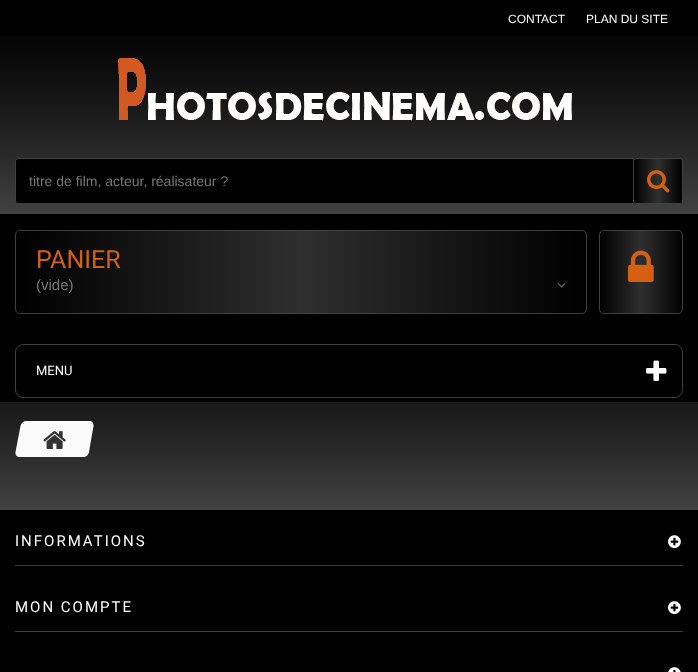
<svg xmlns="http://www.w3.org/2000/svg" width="698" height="672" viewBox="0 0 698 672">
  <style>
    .t1 { font: 12px Liberation Sans; fill: #fff; }
    .t2 { font: 14px Liberation Sans; fill: #777; }
    .t3 { font: 25px Roboto; fill: #d66012; }
    .t4 { font: 15px Liberation Sans; fill: #777; }
    .t5 { font: 13px Roboto; fill: #fff; }
    .t6 { font: 15px Roboto; letter-spacing: 2px; fill: #fff; }
  </style>
  <defs>
    <clipPath id="clip1"><rect x="633" y="158" width="50" height="46" rx="3"/></clipPath>
    <linearGradient id="g1" gradientUnits="userSpaceOnUse" x1="634" y1="181" x2="682" y2="181"><stop offset="0" stop-color="#000"/><stop offset="0" stop-color="#000"/><stop offset="0.5" stop-color="#2f2f2f"/><stop offset="1" stop-color="#000"/></linearGradient>
    <clipPath id="clip2"><rect x="15" y="230" width="572" height="84" rx="5"/></clipPath>
    <linearGradient id="g2" gradientUnits="userSpaceOnUse" x1="16" y1="272" x2="586" y2="272"><stop offset="0" stop-color="#000"/><stop offset="0" stop-color="#000"/><stop offset="0.5" stop-color="#2f2f2f"/><stop offset="1" stop-color="#000"/></linearGradient>
    <clipPath id="clip3"><rect x="599" y="230" width="84" height="84" rx="5"/></clipPath>
    <linearGradient id="g3" gradientUnits="userSpaceOnUse" x1="600" y1="272" x2="682" y2="272"><stop offset="0" stop-color="#000"/><stop offset="0" stop-color="#000"/><stop offset="0.5" stop-color="#2f2f2f"/><stop offset="1" stop-color="#000"/></linearGradient>
  </defs>
  <rect width="100%" height="100%" fill="#fff"/>
  <rect x="0" y="0" width="698" height="402" fill="#000"/>
  <image x="0" y="36" width="698" height="178" href="images/1.png"/>
  <text x="508" y="23" class="t1">CONTACT</text>
  <text x="586" y="23" class="t1">PLAN DU SITE</text>
  <image x="118" y="58" width="454" height="63" href="images/2.png"/>
  <rect x="15.5" y="158.5" width="667" height="45" rx="2.5" fill="#000" stroke="#404040"/>
  <text x="29" y="186" class="t2">titre de film, acteur, réalisateur ?</text>
  <g clip-path="url(#clip1)">
    <rect x="634" y="158" width="48" height="46" fill="url(#g1)"/>
  </g>
  <rect x="633.5" y="158.5" width="49" height="45" rx="2.5" fill="none" stroke="#404040"/>
  <image x="647" y="170" width="23" height="23" href="images/3.png"/>
  <g clip-path="url(#clip2)">
    <rect x="16" y="230" width="570" height="84" fill="url(#g2)"/>
  </g>
  <rect x="15.5" y="230.5" width="571" height="83" rx="4.5" fill="none" stroke="#404040"/>
  <text x="36" y="268" class="t3">PANIER</text>
  <text x="36" y="290" class="t4">(vide)</text>
  <image x="557" y="283" width="9" height="5" href="images/4.png"/>
  <g clip-path="url(#clip3)">
    <rect x="600" y="230" width="82" height="84" fill="url(#g3)"/>
  </g>
  <rect x="599.5" y="230.5" width="83" height="83" rx="4.5" fill="none" stroke="#404040"/>
  <image x="628" y="250" width="26" height="32" href="images/5.png"/>
  <rect x="15.5" y="344.5" width="667" height="53" rx="7.5" fill="none" stroke="#404040"/>
  <text x="36" y="375" class="t5">MENU</text>
  <image x="646" y="360" width="21" height="21" href="images/6.png"/>
  <image x="0" y="402" width="698" height="108" href="images/7.png"/>
  <rect x="40" y="421" width="30" height="36" fill="#fbfbfb"/>
  <image x="43" y="431" width="23" height="18" href="images/8.png"/>
  <path d="M26 421H46L40 457H20C17 457 15 455 15.5 452L20.5 426C21 423 23.5 421 26 421Z" fill="#fbfbfb"/>
  <path d="M69.5 421H89.5C92 421 94 423 93.5 426L89 452C88.5 455 86 457 83 457H63Z" fill="#fbfbfb"/>
  <rect x="0" y="510" width="698" height="162" fill="#000"/>
  <rect x="15" y="565" width="668" height="1" fill="#404040"/>
  <text x="15" y="546" class="t6">INFORMATIONS</text>
  <image x="668" y="535" width="13" height="14" href="images/9.png"/>
  <rect x="15" y="631" width="668" height="1" fill="#404040"/>
  <text x="15" y="612" class="t6">MON COMPTE</text>
  <image x="668" y="601" width="13" height="14" href="images/9.png"/>
  <image x="668" y="667" width="13" height="5" href="images/10.png"/>
</svg>
